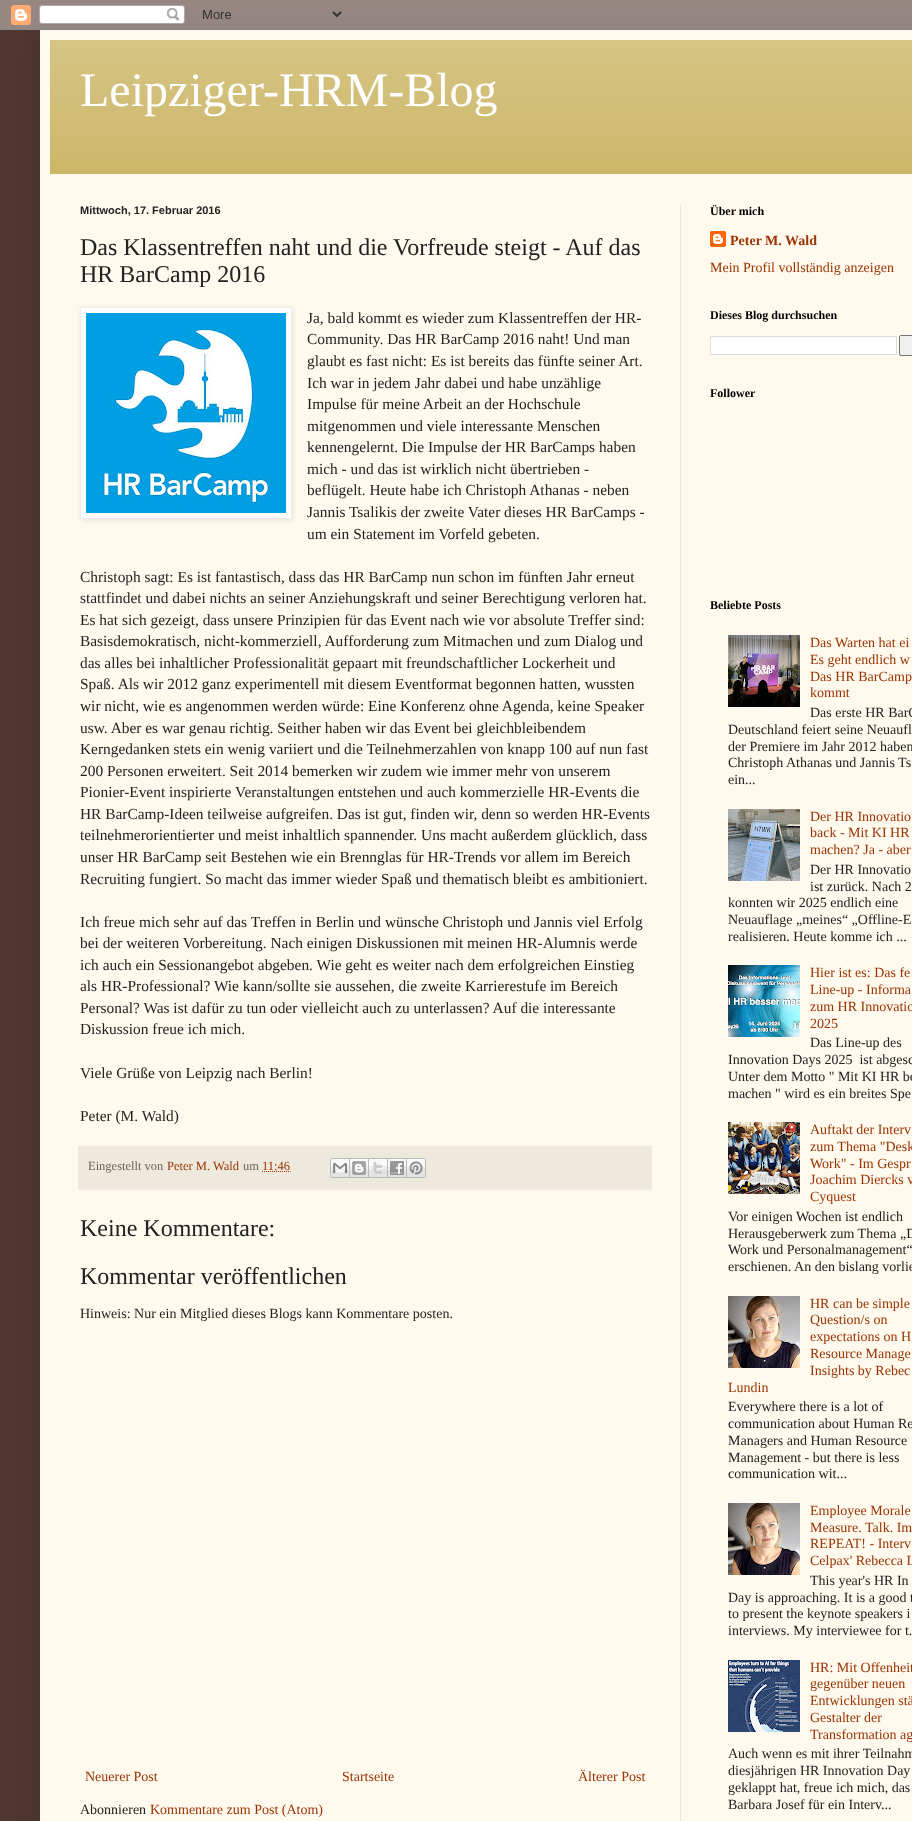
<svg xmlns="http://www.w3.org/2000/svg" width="912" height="1821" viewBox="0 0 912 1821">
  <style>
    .t1 { font: 48px Liberation Serif; fill: #fff; }
    .t2 { font: bold 11px Liberation Sans; fill: #222; }
    .t3 { font: 24px Liberation Serif; fill: #222; }
    .t4 { font: 15.4px Liberation Serif; fill: #222; }
    .t5 { font: 12.5px Liberation Serif; fill: #666555; }
    .t6 { font: 12.5px Liberation Serif; fill: #930; }
    .t7 { font: 14px Liberation Serif; fill: #222; }
    .t8 { font: 14px Liberation Serif; fill: #930; }
    .t9 { font: bold 12px Liberation Serif; fill: #000; }
    .t10 { font: bold 14px Liberation Serif; fill: #930; }
  </style>
  <rect width="100%" height="100%" fill="#513831"/>
  <rect x="40" y="30" width="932" height="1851" fill="#00000026" filter="blur(20px)"/>
  <image x="0" y="0" width="912" height="30" href="images/1.png"/>
  <rect x="40" y="30" width="872" height="1791" fill="#fff9ee"/>
  <rect x="50" y="40" width="862" height="134" fill="#ccb666"/>
  <image x="50" y="40" width="862" height="130" href="images/2.png"/>
  <text x="80" y="106" class="t1">Leipziger-HRM-Blog</text>
  <rect x="680" y="204" width="1" height="1617" fill="#eee5dd"/>
  <text x="80" y="214" class="t2">Mittwoch, 17. Februar 2016</text>
  <text x="80" y="255" class="t3">Das Klassentreffen naht und die Vorfreude steigt - Auf das</text>
  <text x="80" y="282" class="t3">HR BarCamp 2016</text>
  <rect x="81" y="308" width="212" height="212" fill="#0000001a" filter="blur(2.5px)"/>
  <rect x="80.5" y="307.5" width="211" height="211" fill="#fff" stroke="#eee"/>
  <image x="86" y="313" width="200" height="200" href="images/3.png"/>
  <text x="307" y="323" class="t4">Ja, bald kommt es wieder zum Klassentreffen der HR-</text>
  <text x="307" y="344" class="t4">Community. Das HR BarCamp 2016 naht! Und man</text>
  <text x="307" y="366" class="t4">glaubt es fast nicht: Es ist bereits das fünfte seiner Art.</text>
  <text x="307" y="388" class="t4">Ich war in jedem Jahr dabei und habe unzählige</text>
  <text x="307" y="409" class="t4">Impulse für meine Arbeit an der Hochschule</text>
  <text x="307" y="431" class="t4">mitgenommen und viele interessante Menschen</text>
  <text x="307" y="452" class="t4">kennengelernt. Die Impulse der HR BarCamps haben</text>
  <text x="307" y="474" class="t4">mich - und das ist wirklich nicht übertrieben -</text>
  <text x="307" y="495" class="t4">beflügelt. Heute habe ich Christoph Athanas - neben</text>
  <text x="307" y="517" class="t4">Jannis Tsalikis der zweite Vater dieses HR BarCamps -</text>
  <text x="307" y="539" class="t4">um ein Statement im Vorfeld gebeten.</text>
  <text x="80" y="582" class="t4">Christoph sagt: Es ist fantastisch, dass das HR BarCamp nun schon im fünften Jahr erneut</text>
  <text x="80" y="603" class="t4">stattfindet und dabei nichts an seiner Anziehungskraft und seiner Berechtigung verloren hat.</text>
  <text x="80" y="625" class="t4">Es hat sich gezeigt, dass unsere Prinzipien für das Event nach wie vor absolute Treffer sind:</text>
  <text x="80" y="646" class="t4">Basisdemokratisch, nicht-kommerziell, Aufforderung zum Mitmachen und zum Dialog und</text>
  <text x="80" y="668" class="t4">das alles bei inhaltlicher Professionalität gepaart mit freundschaftlicher Lockerheit und</text>
  <text x="80" y="689" class="t4">Spaß. Als wir 2012 ganz experimentell mit diesem Eventformat begonnen hatten, wussten</text>
  <text x="80" y="711" class="t4">wir nicht, wie es angenommen werden würde: Eine Konferenz ohne Agenda, keine Speaker</text>
  <text x="80" y="733" class="t4">usw. Aber es war genau richtig. Seither haben wir das Event bei gleichbleibendem</text>
  <text x="80" y="754" class="t4">Kerngedanken stets ein wenig variiert und die Teilnehmerzahlen von knapp 100 auf nun fast</text>
  <text x="80" y="776" class="t4">200 Personen erweitert. Seit 2014 bemerken wir zudem wie immer mehr von unserem</text>
  <text x="80" y="797" class="t4">Pionier-Event inspirierte Veranstaltungen entstehen und auch kommerzielle HR-Events die</text>
  <text x="80" y="819" class="t4">HR BarCamp-Ideen teilweise aufgreifen. Das ist gut, finden wir, denn so werden HR-Events</text>
  <text x="80" y="840" class="t4">teilnehmerorientierter und meist inhaltlich spannender. Uns macht außerdem glücklich, dass</text>
  <text x="80" y="862" class="t4">unser HR BarCamp seit Bestehen wie ein Brennglas für HR-Trends vor allem im Bereich</text>
  <text x="80" y="884" class="t4">Recruiting fungiert. So macht das immer wieder Spaß und thematisch bleibt es ambitioniert.</text>
  <text x="80" y="927" class="t4">Ich freue mich sehr auf das Treffen in Berlin und wünsche Christoph und Jannis viel Erfolg</text>
  <text x="80" y="948" class="t4">bei der weiteren Vorbereitung. Nach einigen Diskussionen mit meinen HR-Alumnis werde</text>
  <text x="80" y="970" class="t4">ich auch ein Sessionangebot abgeben. Wie geht es weiter nach dem erfolgreichen Einstieg</text>
  <text x="80" y="991" class="t4">als HR-Professional? Wie kann/sollte sie aussehen, die zweite Karrierestufe im Bereich</text>
  <text x="80" y="1013" class="t4">Personal? Was ist dafür zu tun oder vielleicht auch zu unterlassen? Auf die interessante</text>
  <text x="80" y="1034" class="t4">Diskussion freue ich mich.</text>
  <text x="80" y="1078" class="t4">Viele Grüße von Leipzig nach Berlin!</text>
  <text x="80" y="1121" class="t4">Peter (M. Wald)</text>
  <rect x="78" y="1146" width="574" height="43" fill="#eee9dd"/>
  <rect x="78" y="1189" width="574" height="1" fill="#eee"/>
  <text x="88" y="1170" class="t5">Eingestellt von</text>
  <text x="167" y="1170" class="t6">Peter M. Wald</text>
  <text x="243" y="1170" class="t5">um</text>
  <path d="M262 1171.5H290.5" fill="none" stroke="#930" stroke-dasharray="1 1"/>
  <text x="262" y="1170" class="t6">11:46</text>
  <image x="330" y="1158" width="20" height="20" href="images/4.png"/>
  <image x="350" y="1158" width="19" height="20" href="images/5.png"/>
  <image x="369" y="1158" width="19" height="20" href="images/6.png"/>
  <image x="388" y="1158" width="19" height="20" href="images/7.png"/>
  <image x="407" y="1158" width="19" height="20" href="images/8.png"/>
  <text x="80" y="1236" class="t3">Keine Kommentare:</text>
  <text x="80" y="1284" class="t3">Kommentar veröffentlichen</text>
  <text x="80" y="1318" class="t7">Hinweis: Nur ein Mitglied dieses Blogs kann Kommentare posten.</text>
  <text x="85" y="1781" class="t8">Neuerer Post</text>
  <text x="342" y="1781" class="t8">Startseite</text>
  <text x="578" y="1781" class="t8">Älterer Post</text>
  <text x="80" y="1814" class="t7">Abonnieren</text>
  <text x="150" y="1814" class="t8">Kommentare zum Post (Atom)</text>
  <text x="710" y="215" class="t9">Über mich</text>
  <image x="710" y="231" width="16" height="16" href="images/9.png"/>
  <text x="730" y="245" class="t10">Peter M. Wald</text>
  <text x="710" y="272" class="t8">Mein Profil vollständig anzeigen</text>
  <text x="710" y="319" class="t9">Dieses Blog durchsuchen</text>
  <rect x="710.5" y="336.5" width="186" height="18" fill="#fff" stroke="#ddd"/>
  <rect x="899.5" y="335.5" width="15" height="20" rx="1.5" fill="#efefef" stroke="#767676"/>
  <text x="710" y="397" class="t9">Follower</text>
  <text x="710" y="609" class="t9">Beliebte Posts</text>
  <image x="728" y="635" width="72" height="72" href="images/10.png"/>
  <text x="810" y="647" class="t8">Das Warten hat ei</text>
  <text x="810" y="664" class="t8">Es geht endlich w</text>
  <text x="810" y="681" class="t8">Das HR BarCamp</text>
  <text x="810" y="697" class="t8">kommt</text>
  <text x="810" y="717" class="t7">Das erste HR BarC</text>
  <text x="728" y="734" class="t7">Deutschland feiert seine Neuaufl</text>
  <text x="728" y="751" class="t7">der Premiere im Jahr 2012 haben</text>
  <text x="728" y="767" class="t7">Christoph Athanas und Jannis Ts</text>
  <text x="728" y="784" class="t7">ein...</text>
  <image x="728" y="809" width="72" height="72" href="images/11.png"/>
  <text x="810" y="821" class="t8">Der HR Innovatio</text>
  <text x="810" y="837" class="t8">back - Mit KI HR</text>
  <text x="810" y="854" class="t8">machen? Ja - aber</text>
  <text x="810" y="874" class="t7">Der HR Innovatio</text>
  <text x="810" y="891" class="t7">ist zurück. Nach 2</text>
  <text x="728" y="907" class="t7">konnten wir 2025 endlich eine</text>
  <text x="728" y="924" class="t7">Neuauflage „meines“ „Offline-E</text>
  <text x="728" y="941" class="t7">realisieren. Heute komme ich ...</text>
  <image x="728" y="965" width="72" height="72" href="images/12.png"/>
  <text x="810" y="977" class="t8">Hier ist es: Das fe</text>
  <text x="810" y="994" class="t8">Line-up - Informa</text>
  <text x="810" y="1011" class="t8">zum HR Innovatio</text>
  <text x="810" y="1028" class="t8">2025</text>
  <text x="810" y="1047" class="t7">Das Line-up des</text>
  <text x="728" y="1064" class="t7" xml:space="preserve">Innovation Days 2025  ist abgesc</text>
  <text x="728" y="1081" class="t7">Unter dem Motto " Mit KI HR be</text>
  <text x="728" y="1098" class="t7">machen " wird es ein breites Spe</text>
  <image x="728" y="1122" width="72" height="72" href="images/13.png"/>
  <text x="810" y="1134" class="t8">Auftakt der Interv</text>
  <text x="810" y="1151" class="t8">zum Thema "Desk</text>
  <text x="810" y="1168" class="t8">Work" - Im Gespr</text>
  <text x="810" y="1184" class="t8">Joachim Diercks v</text>
  <text x="810" y="1201" class="t8">Cyquest</text>
  <text x="728" y="1221" class="t7">Vor einigen Wochen ist endlich</text>
  <text x="728" y="1238" class="t7">Herausgeberwerk zum Thema „D</text>
  <text x="728" y="1254" class="t7">Work und Personalmanagement“</text>
  <text x="728" y="1271" class="t7">erschienen. An den bislang vorlie</text>
  <image x="728" y="1296" width="72" height="72" href="images/14.png"/>
  <text x="810" y="1308" class="t8">HR can be simple</text>
  <text x="810" y="1324" class="t8">Question/s on</text>
  <text x="810" y="1341" class="t8">expectations on H</text>
  <text x="810" y="1358" class="t8">Resource Manage</text>
  <text x="810" y="1375" class="t8">Insights by Rebec</text>
  <text x="728" y="1392" class="t8">Lundin</text>
  <text x="728" y="1411" class="t7">Everywhere there is a lot of</text>
  <text x="728" y="1428" class="t7">communication about Human Re</text>
  <text x="728" y="1445" class="t7">Managers and Human Resource</text>
  <text x="728" y="1462" class="t7">Management - but there is less</text>
  <text x="728" y="1478" class="t7">communication wit...</text>
  <image x="728" y="1503" width="72" height="72" href="images/15.png"/>
  <text x="810" y="1515" class="t8">Employee Morale</text>
  <text x="810" y="1532" class="t8">Measure. Talk. Im</text>
  <text x="810" y="1548" class="t8">REPEAT! - Interv</text>
  <text x="810" y="1565" class="t8">Celpax' Rebecca L</text>
  <text x="810" y="1585" class="t7">This year's HR In</text>
  <text x="728" y="1602" class="t7">Day is approaching. It is a good t</text>
  <text x="728" y="1618" class="t7">to present the keynote speakers i</text>
  <text x="728" y="1635" class="t7">interviews. My interviewee for t.</text>
  <image x="728" y="1660" width="72" height="72" href="images/16.png"/>
  <text x="810" y="1672" class="t8">HR: Mit Offenheit</text>
  <text x="810" y="1688" class="t8">gegenüber neuen</text>
  <text x="810" y="1705" class="t8">Entwicklungen stä</text>
  <text x="810" y="1722" class="t8">Gestalter der</text>
  <text x="810" y="1739" class="t8">Transformation ag</text>
  <text x="728" y="1758" class="t7">Auch wenn es mit ihrer Teilnahm</text>
  <text x="728" y="1775" class="t7">diesjährigen HR Innovation Day</text>
  <text x="728" y="1792" class="t7">geklappt hat, freue ich mich, das</text>
  <text x="728" y="1809" class="t7">Barbara Josef für ein Interv...</text>
</svg>
